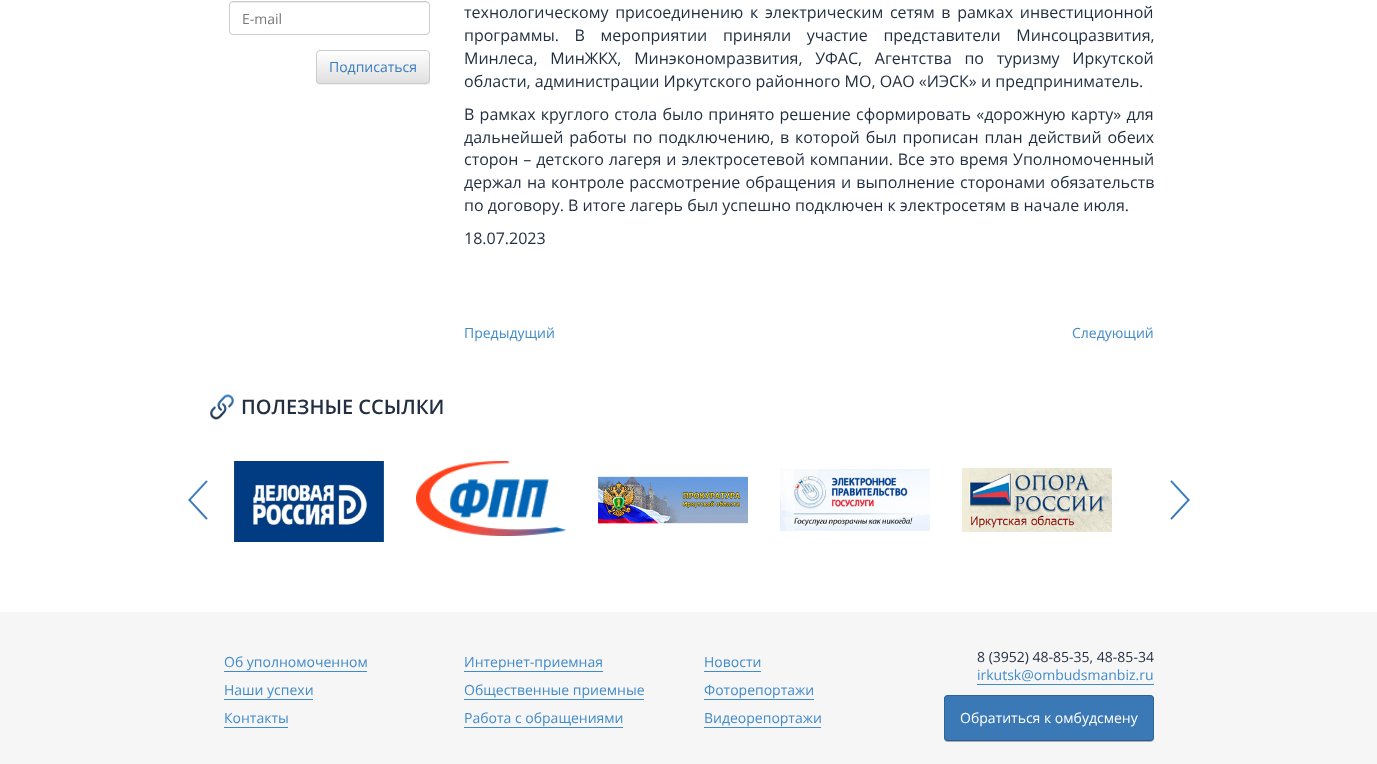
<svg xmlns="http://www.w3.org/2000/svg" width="1377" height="764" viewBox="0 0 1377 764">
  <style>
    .t1 { font: 14px Open Sans; fill: #777; }
    .t2 { font: 14px Open Sans; fill: #397cbf; }
    .t3 { font: 16px Open Sans; fill: #232f40; }
    .t4 { font: 14px Open Sans; fill: #428bca; }
    .t5 { font: 600 20px Open Sans; fill: #232f40; }
    .t6 { font: 14px Open Sans; fill: #232f40; }
    .t7 { font: 14px Open Sans; fill: #fff; }
  </style>
  <defs>
    <clipPath id="clip1"><rect x="316" y="50" width="114" height="34" rx="4"/></clipPath>
    <linearGradient id="g1" gradientUnits="userSpaceOnUse" x1="373" y1="51" x2="373" y2="83"><stop offset="0" stop-color="#fff"/><stop offset="1" stop-color="#e0e0e0"/></linearGradient>
  </defs>
  <rect width="100%" height="100%" fill="#fff"/>
  <path d="M233 3H426C428 3 429 4 429 6C429 4 428 2 426 2H233C231 2 230 4 230 6C230 4 231 3 233 3Z" fill="#ececec"/>
  <rect x="229.5" y="1.5" width="200" height="33" rx="3.5" fill="none" stroke="#ccc"/>
  <text x="242" y="24" class="t1">E-mail</text>
  <rect x="316" y="51" width="114" height="34" rx="4" fill="#00000012" filter="blur(0.5px)"/>
  <g clip-path="url(#clip1)">
    <rect x="316" y="51" width="114" height="32" fill="url(#g1)"/>
  </g>
  <rect x="316.5" y="50.5" width="113" height="33" rx="3.5" fill="none" stroke="#ccc"/>
  <text x="329" y="72" class="t2">Подписаться</text>
  <text x="464" y="18" word-spacing="2.5" class="t3">технологическому присоединению к электрическим сетям в рамках инвестиционной</text>
  <text x="464" y="41" word-spacing="11.5" class="t3">программы. В мероприятии приняли участие представители Минсоцразвития,</text>
  <text x="464" y="64" word-spacing="8.5" class="t3">Минлеса, МинЖКХ, Минэкономразвития, УФАС, Агентства по туризму Иркутской</text>
  <text x="464" y="87" class="t3">области, администрации Иркутского районного МО, ОАО «ИЭСК» и предприниматель.</text>
  <text x="464" y="120" word-spacing="1.1" class="t3">В рамках круглого стола было принято решение сформировать «дорожную карту» для</text>
  <text x="464" y="143" word-spacing="1.75" class="t3">дальнейшей работы по подключению, в которой был прописан план действий обеих</text>
  <text x="464" y="165" word-spacing="0.75" class="t3">сторон – детского лагеря и электросетевой компании. Все это время Уполномоченный</text>
  <text x="464" y="188" word-spacing="1" class="t3">держал на контроле рассмотрение обращения и выполнение сторонами обязательств</text>
  <text x="464" y="211" class="t3">по договору. В итоге лагерь был успешно подключен к электросетям в начале июля.</text>
  <text x="464" y="244" class="t3">18.07.2023</text>
  <text x="464" y="338" class="t4">Предыдущий</text>
  <text x="1072" y="338" class="t4">Следующий</text>
  <image x="210" y="394" width="24" height="26" href="images/1.png"/>
  <text x="241" y="414" class="t5">ПОЛЕЗНЫЕ ССЫЛКИ</text>
  <image x="188" y="480" width="20" height="40" href="images/2.png"/>
  <image x="234" y="461" width="150" height="81" href="images/3.png"/>
  <image x="416" y="461" width="150" height="75" href="images/4.png"/>
  <image x="598" y="475" width="150" height="49" href="images/5.png"/>
  <image x="780" y="469" width="150" height="62" href="images/6.png"/>
  <image x="962" y="468" width="150" height="64" href="images/7.png"/>
  <image x="1170" y="480" width="20" height="40" href="images/8.png"/>
  <rect x="0" y="612" width="1377" height="152" fill="#f6f6f6"/>
  <text x="224" y="667" class="t4">Об уполномоченном</text>
  <rect x="224" y="671" width="143" height="1" fill="#428bca"/>
  <text x="224" y="695" class="t4">Наши успехи</text>
  <rect x="224" y="699" width="89" height="1" fill="#428bca"/>
  <text x="224" y="723" class="t4">Контакты</text>
  <rect x="224" y="727" width="64" height="1" fill="#428bca"/>
  <text x="464" y="667" class="t4">Интернет-приемная</text>
  <rect x="464" y="671" width="139" height="1" fill="#428bca"/>
  <text x="464" y="695" class="t4">Общественные приемные</text>
  <rect x="464" y="699" width="180" height="1" fill="#428bca"/>
  <text x="464" y="723" class="t4">Работа с обращениями</text>
  <rect x="464" y="727" width="159" height="1" fill="#428bca"/>
  <text x="704" y="667" class="t4">Новости</text>
  <rect x="704" y="671" width="57" height="1" fill="#428bca"/>
  <text x="704" y="695" class="t4">Фоторепортажи</text>
  <rect x="704" y="699" width="110" height="1" fill="#428bca"/>
  <text x="704" y="723" class="t4">Видеорепортажи</text>
  <rect x="704" y="727" width="117" height="1" fill="#428bca"/>
  <text x="977" y="662" class="t6">8 (3952) 48-85-35, 48-85-34</text>
  <text x="977" y="680" class="t4">irkutsk@ombudsmanbiz.ru</text>
  <rect x="977" y="684" width="177" height="1" fill="#428bca"/>
  <rect x="944" y="696" width="210" height="46" rx="4" fill="#adadad" filter="blur(0.5px)"/>
  <rect x="944" y="695" width="210" height="46" rx="4" fill="#3b79b6"/>
  <path d="M1152.5 739.5C1152 740 1151 740.5 1150 740.5H948C947 740.5 946 740 945.5 739.5" fill="none" stroke="#2a5b8c"/>
  <path d="M945.5 739.5C945 739 944.5 738 944.5 737V699C944.5 698 945 697 945.5 696.5C946 696 947 695.5 948 695.5H1150C1151 695.5 1152 696 1152.5 696.5C1153 697 1153.5 698 1153.5 699V737C1153.5 738 1153 739 1152.5 739.5" fill="none" stroke="#2b669a"/>
  <text x="960" y="723" class="t7">Обратиться к омбудсмену</text>
</svg>
